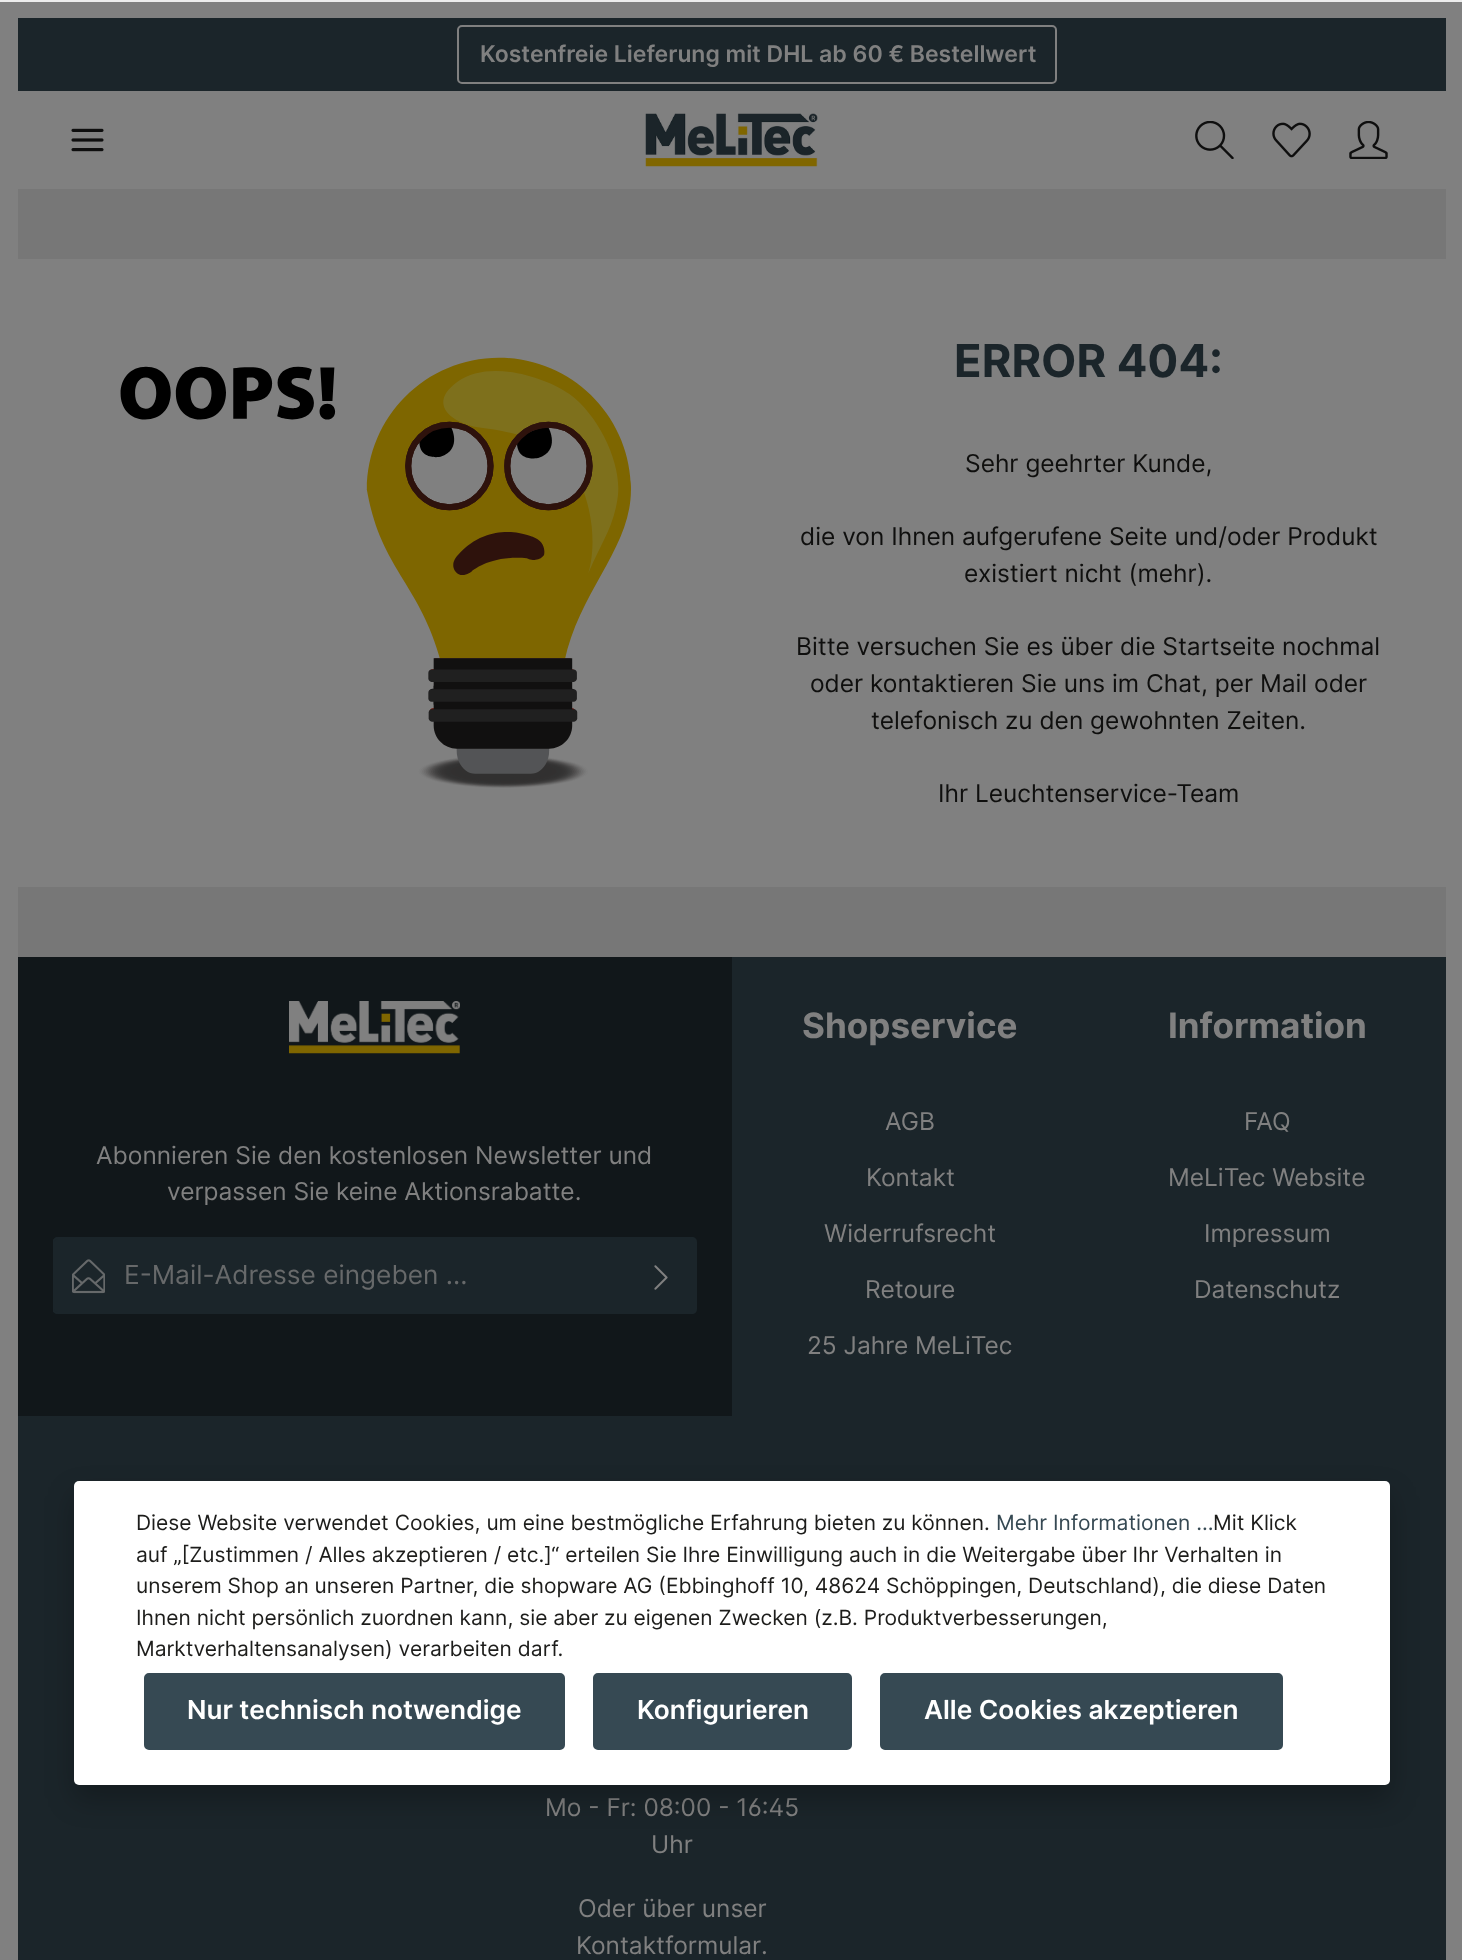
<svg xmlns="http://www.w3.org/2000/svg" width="1462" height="1960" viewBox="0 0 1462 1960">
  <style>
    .t1 { font: 600 23px Inter; fill: #808080; }
    .t2 { font: bold 45.25px Inter; fill: #1b252a; }
    .t3 { font: 24.5px Inter; fill: #0f0f0e; }
    .t4 { font: 24.5px Inter; fill: #808080; }
    .t5 { font: 26.25px Inter; fill: #67696a; }
    .t6 { font: bold 35px Inter; fill: #808080; }
    .t7 { font: 24.5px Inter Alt; fill: #808080; }
    .t8 { font: 21px Inter; fill: #1d1d1b; }
    .t9 { font: 21px Inter; fill: #364953; }
    .t10 { font: 600 26.25px Inter; fill: #fff; }
  </style>
  <defs>
    <clipPath id="clip1"><rect x="53" y="1136" width="644" height="178"/></clipPath>
  </defs>
  <rect width="100%" height="100%" fill="#808080"/>
  <rect x="18" y="18" width="1428" height="73" fill="#1b252a"/>
  <rect x="458" y="26" width="598" height="57" rx="4" fill="none" stroke="#808080" stroke-width="2"/>
  <text x="480" y="62" class="t1">Kostenfreie Lieferung mit DHL ab 60 € Bestellwert</text>
  <image x="71" y="128" width="33" height="24" href="images/1.png"/>
  <image x="645" y="113" width="173" height="54" href="images/2.png"/>
  <image x="1195" y="121" width="39" height="38" href="images/3.png"/>
  <image x="1272" y="122" width="39" height="36" href="images/4.png"/>
  <image x="1349" y="121" width="39" height="38" href="images/5.png"/>
  <rect x="18" y="189" width="1428" height="768" fill="#777"/>
  <rect x="18" y="259" width="1428" height="628" fill="#808080"/>
  <image x="120" y="357" width="511" height="431" href="images/6.png"/>
  <text x="954" y="377" class="t2">ERROR 404:</text>
  <text x="965" y="472" class="t3">Sehr geehrter Kunde,</text>
  <text x="800" y="545" class="t3">die von Ihnen aufgerufene Seite und/oder Produkt</text>
  <text x="964" y="582" class="t3">existiert nicht (mehr).</text>
  <text x="796" y="655" class="t3">Bitte versuchen Sie es über die Startseite nochmal</text>
  <text x="810" y="692" class="t3">oder kontaktieren Sie uns im Chat, per Mail oder</text>
  <text x="871" y="729" class="t3">telefonisch zu den gewohnten Zeiten.</text>
  <text x="938" y="802" class="t3">Ihr Leuchtenservice-Team</text>
  <rect x="18" y="957" width="1428" height="1003" fill="#1b252a"/>
  <rect x="18" y="957" width="714" height="459" fill="#11171a"/>
  <image x="289" y="1001" width="171" height="53" href="images/7.png"/>
  <text x="96" y="1164" class="t4">Abonnieren Sie den kostenlosen Newsletter und</text>
  <text x="167" y="1200" class="t4">verpassen Sie keine Aktionsrabatte.</text>
  <path d="M58 1237H630V1314H58C55 1314 53 1312 53 1309V1242C53 1239 55 1237 58 1237Z" fill="#1b252a"/>
  <g clip-path="url(#clip1)">
    <path d="M58 1237H630V1314H58C55 1314 52 1312 52 1309V1242C52 1240 55 1237 58 1237ZM58 1239H630V1312H58C56 1312 54 1311 54 1309V1242C54 1241 56 1239 58 1239Z" fill="#1b252a" fill-rule="evenodd"/>
  </g>
  <image x="72" y="1259" width="33" height="35" href="images/8.png"/>
  <text x="124" y="1284" class="t5">E-Mail-Adresse eingeben ...</text>
  <path d="M628 1237H692C695 1237 697 1239 697 1242V1309C697 1312 695 1314 692 1314H628Z" fill="#1b252a"/>
  <image x="654" y="1265" width="14" height="25" href="images/9.png"/>
  <text x="802" y="1038" class="t6">Shopservice</text>
  <text x="885" y="1130" class="t4">AGB</text>
  <text x="866" y="1186" class="t4">Kontakt</text>
  <text x="824" y="1242" class="t4">Widerrufsrecht</text>
  <text x="865" y="1298" class="t4">Retoure</text>
  <text x="807" y="1354" class="t4">25 Jahre MeLiTec</text>
  <text x="1168" y="1038" class="t6">Information</text>
  <text x="1244" y="1130" class="t4">FAQ</text>
  <text x="1168" y="1186" class="t4">MeLiTec Website</text>
  <text x="1204" y="1242" class="t4">Impressum</text>
  <text x="1194" y="1298" class="t4">Datenschutz</text>
  <text x="545" y="1816" class="t7">Mo - Fr: 08:00 - 16:45</text>
  <text x="651" y="1853" class="t4">Uhr</text>
  <text x="578" y="1917" class="t4">Oder über unser</text>
  <text x="576" y="1954" class="t4">Kontaktformular</text>
  <text x="761" y="1954" class="t4">.</text>
  <rect x="0" y="0" width="1462" height="2" fill="#ededed"/>
  <rect x="74" y="1495" width="1316" height="304" rx="5" fill="#00000040" filter="blur(14px)"/>
  <rect x="74" y="1481" width="1316" height="304" rx="5" fill="#fff"/>
  <text x="136" y="1530" class="t8">Diese Website verwendet Cookies, um eine bestmögliche Erfahrung bieten zu können.</text>
  <text x="996" y="1530" class="t9">Mehr Informationen ...</text>
  <text x="1213" y="1530" class="t8">Mit Klick</text>
  <text x="136" y="1562" class="t8">auf „[Zustimmen / Alles akzeptieren / etc.]“ erteilen Sie Ihre Einwilligung auch in die Weitergabe über Ihr Verhalten in</text>
  <text x="136" y="1593" class="t8">unserem Shop an unseren Partner, die shopware AG (Ebbinghoff 10, 48624 Schöppingen, Deutschland), die diese Daten</text>
  <text x="136" y="1625" class="t8">Ihnen nicht persönlich zuordnen kann, sie aber zu eigenen Zwecken (z.B. Produktverbesserungen,</text>
  <text x="136" y="1656" class="t8">Marktverhaltensanalysen) verarbeiten darf.</text>
  <rect x="145" y="1674" width="419" height="75" rx="4" fill="#364953" stroke="#364953" stroke-width="2"/>
  <text x="187" y="1719" class="t10">Nur technisch notwendige</text>
  <rect x="594" y="1674" width="257" height="75" rx="4" fill="#364953" stroke="#364953" stroke-width="2"/>
  <text x="637" y="1719" class="t10">Konfigurieren</text>
  <rect x="881" y="1674" width="401" height="75" rx="4" fill="#364953" stroke="#364953" stroke-width="2"/>
  <text x="924" y="1719" class="t10">Alle Cookies akzeptieren</text>
</svg>
